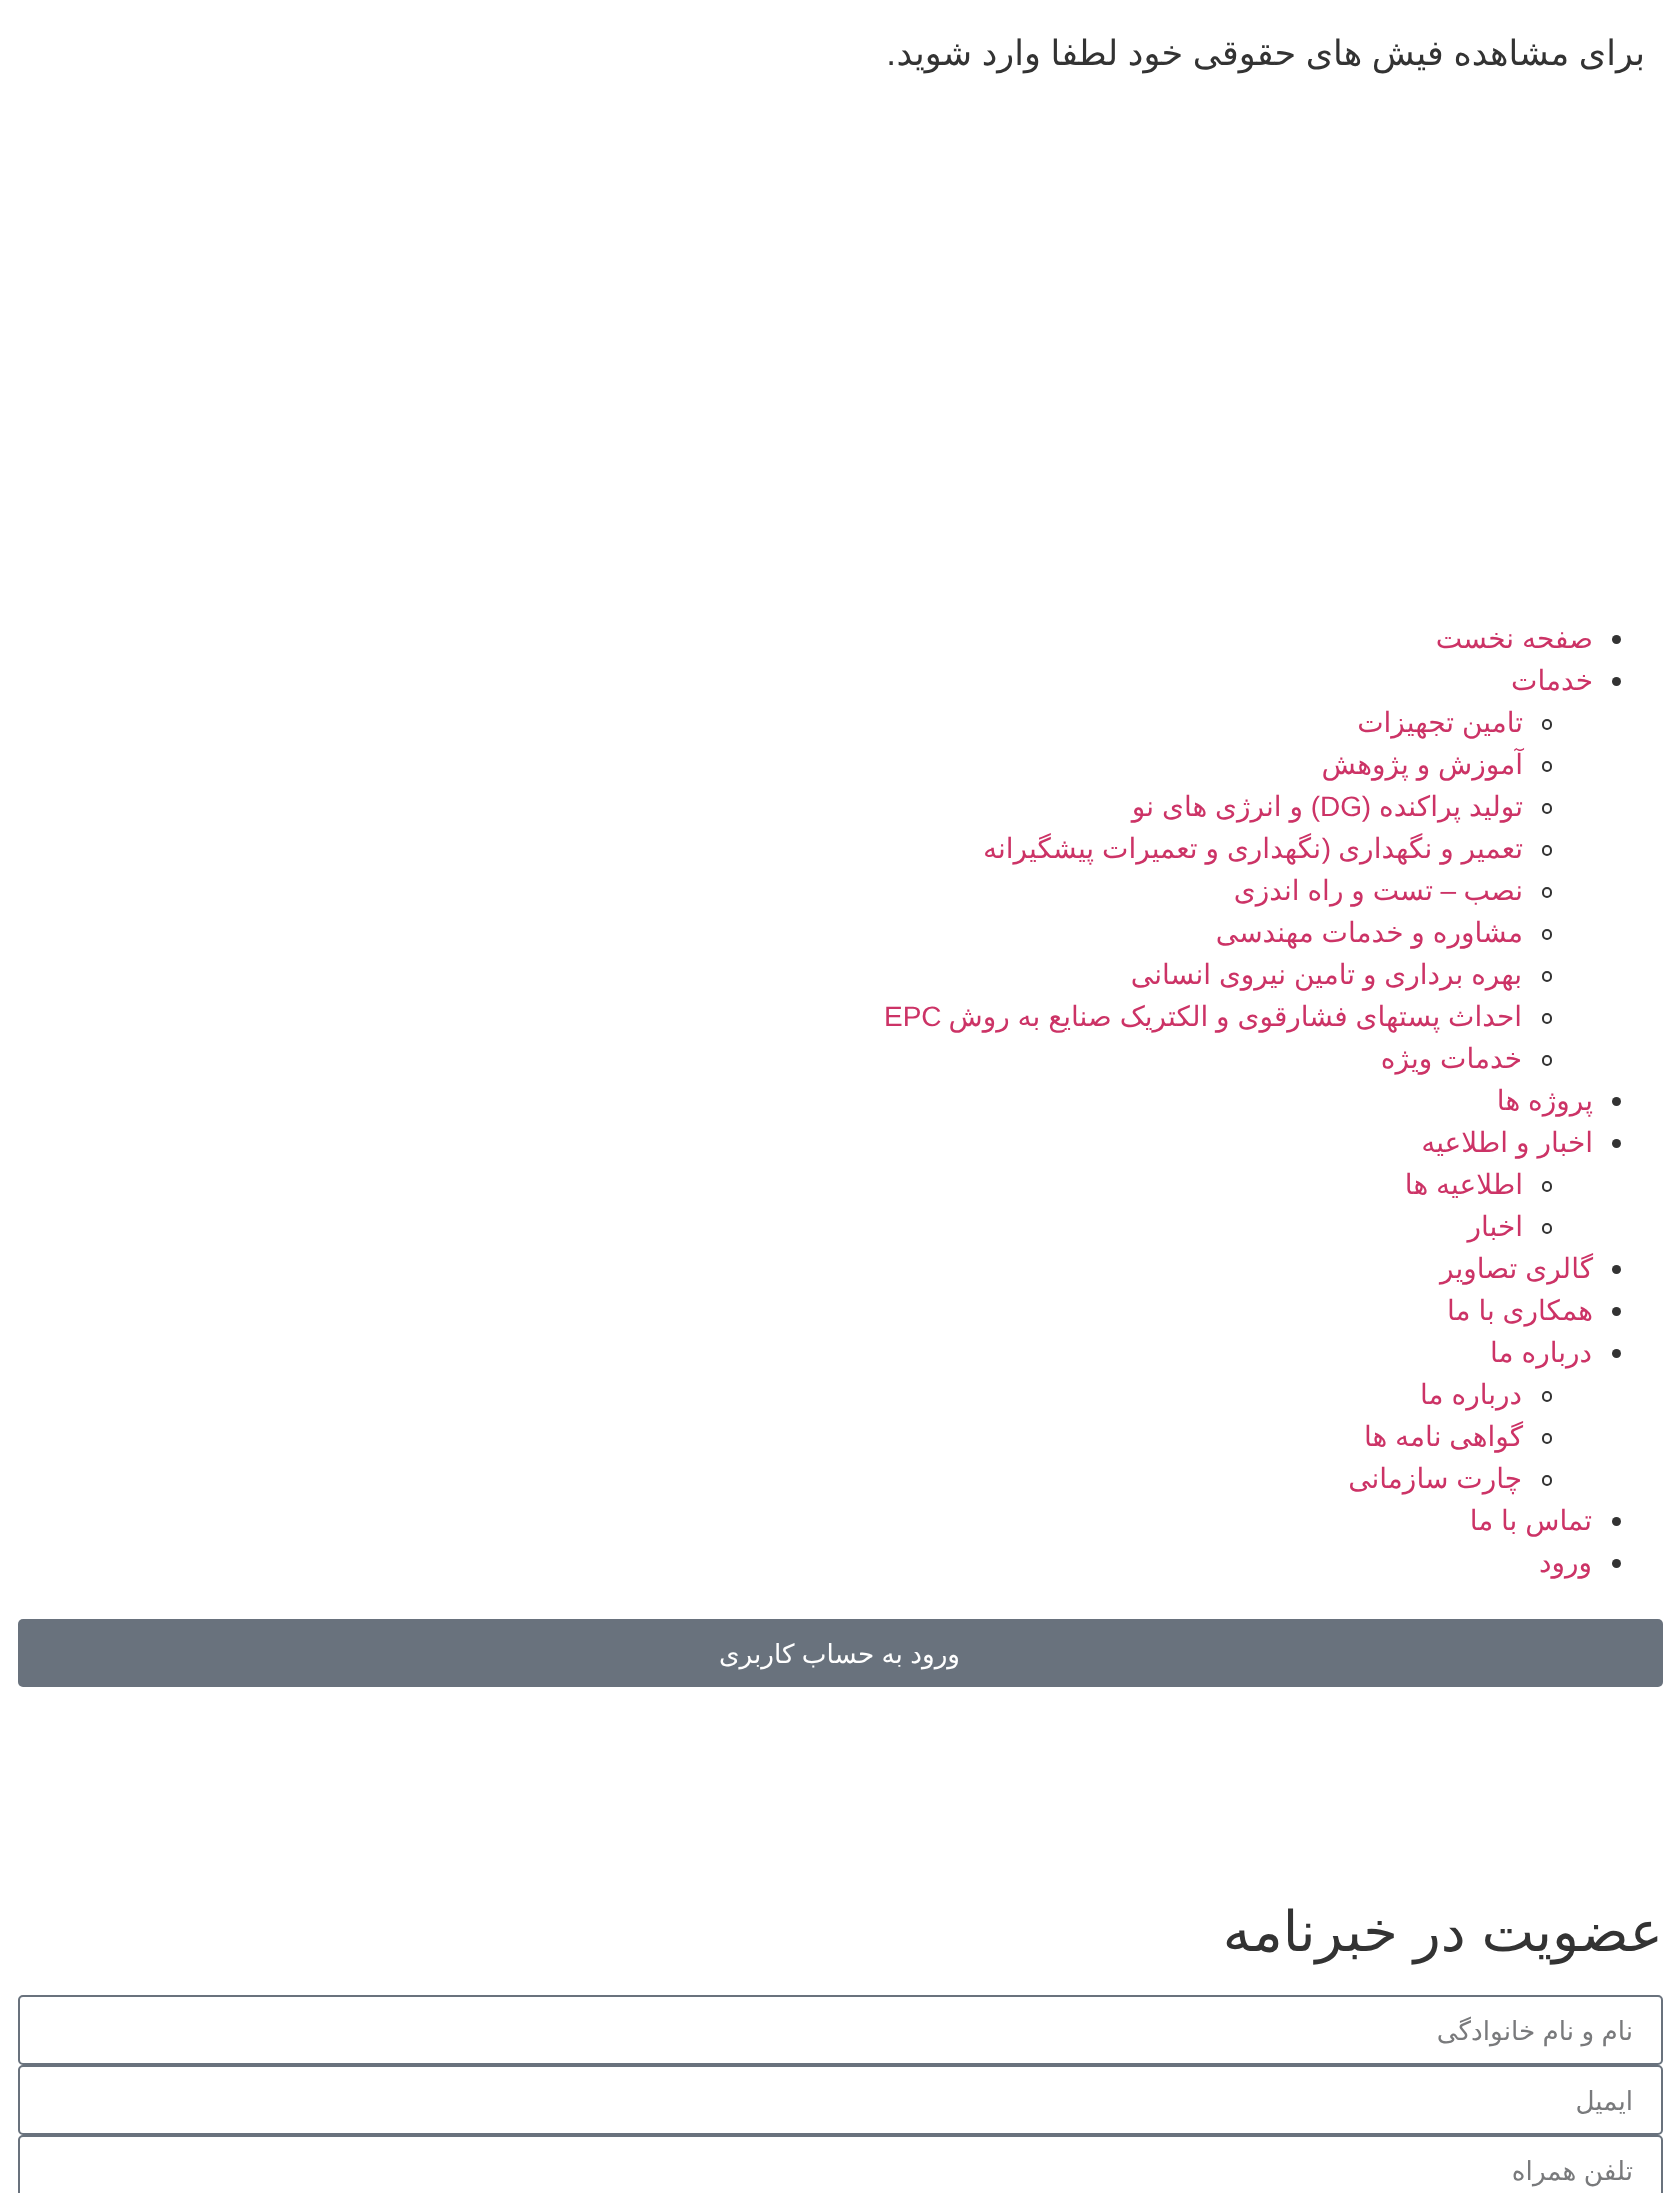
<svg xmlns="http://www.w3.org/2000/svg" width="1679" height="2193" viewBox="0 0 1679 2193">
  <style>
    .t1 { font: 35px DejaVu Sans; direction: rtl; fill: #333; }
    .t2 { font: 35px Liberation Sans; direction: rtl; fill: #333; }
    .t3 { font: 28px DejaVu Sans; direction: rtl; fill: #c36; }
    .t4 { font: 28px Liberation Sans; direction: rtl; fill: #c36; }
    .t5 { font: 28px Liberation Sans; fill: #c36; }
    .t6 { font: 26.25px DejaVu Sans; direction: rtl; fill: #fff; }
    .t7 { font: 56px DejaVu Sans; direction: rtl; fill: #333; }
    .t8 { font: 26.25px DejaVu Sans; direction: rtl; fill: #797a7c; }
  </style>
  <defs>
    <clipPath id="clip1"><rect x="47" y="2016" width="1586" height="32"/></clipPath>
  </defs>
  <rect width="100%" height="100%" fill="#fff"/>
  <text x="1645" y="65" word-spacing="-1.5" class="t1">برای مشاهده فیش های حقوقی خود لطفا وارد شوید</text>
  <text x="896" y="65" class="t2">.</text>
  <circle cx="1616.5" cy="639.5" r="4.5" fill="#333"/>
  <text x="1593" y="648" word-spacing="-1" class="t3">صفحه نخست</text>
  <circle cx="1616.5" cy="681.5" r="4.5" fill="#333"/>
  <text x="1593" y="690" class="t3">خدمات</text>
  <rect x="1543" y="720" width="8" height="9" rx="4" fill="none" stroke="#333" stroke-width="2"/>
  <text x="1523" y="732" word-spacing="-1" class="t3">تامین تجهیزات</text>
  <rect x="1543" y="762" width="8" height="9" rx="4" fill="none" stroke="#333" stroke-width="2"/>
  <text x="1523" y="774" word-spacing="-1" class="t3">آموزش و پژوهش</text>
  <rect x="1543" y="804" width="8" height="9" rx="4" fill="none" stroke="#333" stroke-width="2"/>
  <text x="1523" y="816" word-spacing="-1" class="t3">تولید پراکنده</text>
  <text x="1371" y="816" class="t4">(</text>
  <text x="1320" y="816" class="t5">DG</text>
  <text x="1320" y="816" class="t4">)</text>
  <text x="1303" y="816" word-spacing="-1" class="t3">و انرژی های نو</text>
  <rect x="1543" y="846" width="8" height="9" rx="4" fill="none" stroke="#333" stroke-width="2"/>
  <text x="1523" y="858" word-spacing="-1" class="t3">تعمیر و نگهداری</text>
  <text x="1331" y="858" class="t4">(</text>
  <text x="1321" y="858" word-spacing="-1" class="t3">نگهداری و تعمیرات پیشگیرانه</text>
  <rect x="1543" y="888" width="8" height="9" rx="4" fill="none" stroke="#333" stroke-width="2"/>
  <text x="1523" y="900" class="t3">نصب</text>
  <text x="1456" y="900" class="t4">–</text>
  <text x="1433" y="900" word-spacing="-1" class="t3">تست و راه اندزی</text>
  <rect x="1543" y="930" width="8" height="9" rx="4" fill="none" stroke="#333" stroke-width="2"/>
  <text x="1523" y="942" word-spacing="-1" class="t3">مشاوره و خدمات مهندسی</text>
  <rect x="1543" y="972" width="8" height="9" rx="4" fill="none" stroke="#333" stroke-width="2"/>
  <text x="1522" y="984" word-spacing="-1" class="t3">بهره برداری و تامین نیروی انسانی</text>
  <rect x="1543" y="1014" width="8" height="9" rx="4" fill="none" stroke="#333" stroke-width="2"/>
  <text x="1522" y="1026" word-spacing="-1" class="t3">احداث پستهای فشارقوی و الکتریک صنایع به روش</text>
  <text x="884" y="1026" class="t5">EPC</text>
  <rect x="1543" y="1056" width="8" height="9" rx="4" fill="none" stroke="#333" stroke-width="2"/>
  <text x="1522" y="1068" word-spacing="-1" class="t3">خدمات ویژه</text>
  <circle cx="1616.5" cy="1101.5" r="4.5" fill="#333"/>
  <text x="1593" y="1110" word-spacing="-1" class="t3">پروژه ها</text>
  <circle cx="1616.5" cy="1143.5" r="4.5" fill="#333"/>
  <text x="1593" y="1152" word-spacing="-1" class="t3">اخبار و اطلاعیه</text>
  <rect x="1543" y="1182" width="8" height="9" rx="4" fill="none" stroke="#333" stroke-width="2"/>
  <text x="1523" y="1194" word-spacing="-1" class="t3">اطلاعیه ها</text>
  <rect x="1543" y="1224" width="8" height="9" rx="4" fill="none" stroke="#333" stroke-width="2"/>
  <text x="1523" y="1236" class="t3">اخبار</text>
  <circle cx="1616.5" cy="1269.5" r="4.5" fill="#333"/>
  <text x="1593" y="1278" word-spacing="-1" class="t3">گالری تصاویر</text>
  <circle cx="1616.5" cy="1311.5" r="4.5" fill="#333"/>
  <text x="1593" y="1320" word-spacing="-1" class="t3">همکاری با ما</text>
  <circle cx="1616.5" cy="1353.5" r="4.5" fill="#333"/>
  <text x="1592" y="1362" word-spacing="-1" class="t3">درباره ما</text>
  <rect x="1543" y="1392" width="8" height="9" rx="4" fill="none" stroke="#333" stroke-width="2"/>
  <text x="1522" y="1404" word-spacing="-1" class="t3">درباره ما</text>
  <rect x="1543" y="1434" width="8" height="9" rx="4" fill="none" stroke="#333" stroke-width="2"/>
  <text x="1523" y="1446" word-spacing="-1" class="t3">گواهی نامه ها</text>
  <rect x="1543" y="1476" width="8" height="9" rx="4" fill="none" stroke="#333" stroke-width="2"/>
  <text x="1522" y="1488" word-spacing="-1" class="t3">چارت سازمانی</text>
  <circle cx="1616.5" cy="1521.5" r="4.5" fill="#333"/>
  <text x="1592" y="1530" word-spacing="-1" class="t3">تماس با ما</text>
  <circle cx="1616.5" cy="1563.5" r="4.5" fill="#333"/>
  <text x="1592" y="1572" class="t3">ورود</text>
  <rect x="18" y="1619" width="1645" height="68" rx="5" fill="#69727d"/>
  <text x="960" y="1663" word-spacing="-1" class="t6">ورود به حساب کاربری</text>
  <text x="1663" y="1951" word-spacing="-2" class="t7">عضویت در خبرنامه</text>
  <rect x="19" y="1996" width="1643" height="68" rx="4" fill="none" stroke="#69727d" stroke-width="2"/>
  <g clip-path="url(#clip1)">
    <text x="1633" y="2040" word-spacing="-1" class="t8">نام و نام خانوادگی</text>
  </g>
  <rect x="19" y="2066" width="1643" height="68" rx="4" fill="none" stroke="#69727d" stroke-width="2"/>
  <text x="1633" y="2110" class="t8">ایمیل</text>
  <rect x="19" y="2136" width="1643" height="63" rx="4" fill="none" stroke="#69727d" stroke-width="2"/>
  <text x="1633" y="2180" word-spacing="-1" class="t8">تلفن همراه</text>
</svg>
